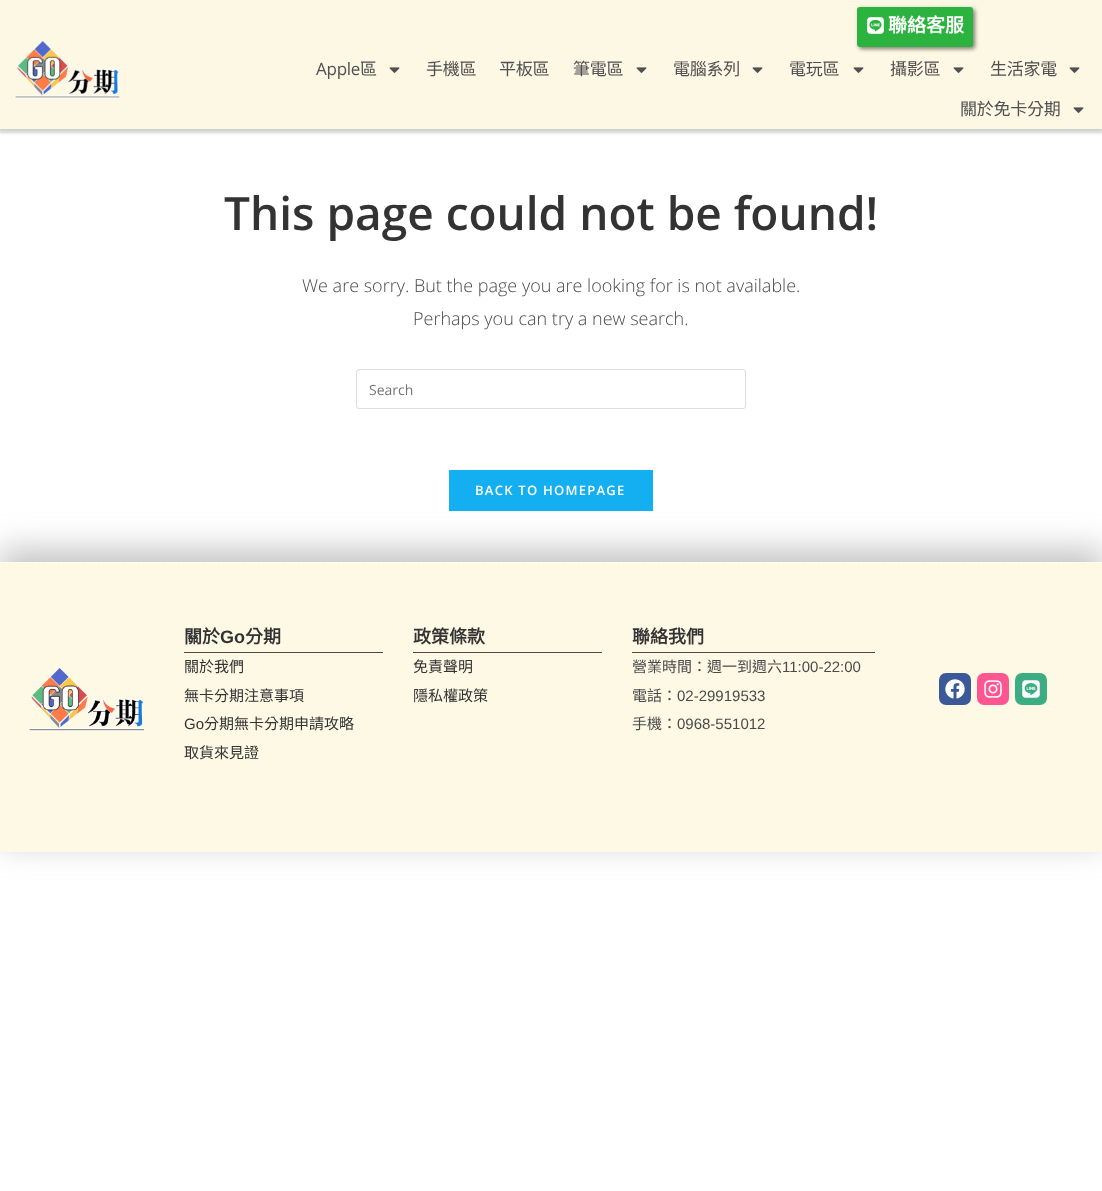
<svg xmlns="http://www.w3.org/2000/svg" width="1102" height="1191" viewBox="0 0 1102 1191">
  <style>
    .t1 { font: bold 19px Noto Sans CJK TC; fill: #fff; }
    .t2 { font: 17px Open Sans; letter-spacing: -0.25px; fill: #504f51; }
    .t3 { font: 17px Noto Sans CJK TC; letter-spacing: -0.25px; fill: #504f51; }
    .t4 { font: 600 46px Open Sans; fill: #333; }
    .t5 { font: 300 18px Open Sans; fill: #4a4a4a; }
    .t6 { font: 14px Open Sans; fill: #757575; }
    .t7 { font: 600 13px Open Sans; letter-spacing: 1.25px; fill: #fff; }
    .t8 { font: bold 18px Noto Sans CJK TC; fill: #333; }
    .t9 { font: bold 18px Liberation Sans; fill: #333; }
    .t10 { font: 15px Noto Sans CJK TC; fill: #333; }
    .t11 { font: 15px Liberation Sans; fill: #333; }
    .t12 { font: 15px Noto Sans CJK TC; fill: #4a4a4a; }
    .t13 { font: 15px Liberation Sans; fill: #4a4a4a; }
  </style>
  <rect width="100%" height="100%" fill="#fff"/>
  <rect x="0" y="129" width="1102" height="1" fill="#f1f1f1"/>
  <rect x="-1" y="2" width="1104" height="131" fill="#bfbfbfa6" filter="blur(1.5px)"/>
  <rect x="0" y="0" width="1102" height="129" fill="#fdf8e4"/>
  <image x="14" y="40" width="107" height="59" href="images/1.png"/>
  <rect x="859" y="9" width="116" height="40" rx="3" fill="#00000080" filter="blur(2px)"/>
  <rect x="857" y="7" width="116" height="40" rx="3" fill="#2cb33f"/>
  <image x="867" y="17" width="17" height="17" href="images/2.png"/>
  <text x="888" y="32" class="t1">聯絡客服</text>
  <text x="316" y="75" class="t2">Apple</text>
  <text x="360" y="75" class="t3">區</text>
  <image x="389" y="67" width="11" height="6" href="images/3.png"/>
  <text x="426" y="75" class="t3">手機區</text>
  <text x="499" y="75" class="t3">平板區</text>
  <text x="573" y="75" class="t3">筆電區</text>
  <image x="636" y="67" width="11" height="6" href="images/3.png"/>
  <text x="673" y="75" class="t3">電腦系列</text>
  <image x="752" y="67" width="11" height="6" href="images/3.png"/>
  <text x="789" y="75" class="t3">電玩區</text>
  <image x="853" y="67" width="11" height="6" href="images/3.png"/>
  <text x="890" y="75" class="t3">攝影區</text>
  <image x="953" y="67" width="11" height="6" href="images/3.png"/>
  <text x="990" y="75" class="t3">生活家電</text>
  <image x="1069" y="67" width="11" height="6" href="images/3.png"/>
  <text x="960" y="115" class="t3">關於免卡分期</text>
  <image x="1073" y="107" width="11" height="6" href="images/3.png"/>
  <text x="224" y="230" class="t4">This page could not be found!</text>
  <text x="302" y="292" class="t5">We are sorry. But the page you are looking for is not available.</text>
  <text x="413" y="325" class="t5">Perhaps you can try a new search.</text>
  <rect x="356.5" y="369.5" width="389" height="39" rx="2.5" fill="none" stroke="#ddd"/>
  <text x="369" y="395" class="t6">Search</text>
  <rect x="449" y="470" width="204" height="41" fill="#13aff0"/>
  <text x="475" y="495" class="t7">BACK TO HOMEPAGE</text>
  <rect x="-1" y="549" width="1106" height="294" fill="#89898980" filter="blur(16px)"/>
  <rect x="0" y="562" width="1102" height="290" fill="#fdf9e5"/>
  <path d="M0 562.5H1102" fill="none" stroke="#fff" stroke-dasharray="3 2"/>
  <image x="28" y="667" width="118" height="64" href="images/4.png"/>
  <rect x="184" y="652" width="199" height="1" fill="#4a4a4a"/>
  <text x="184" y="643" class="t8">關於</text>
  <text x="220" y="643" class="t9">Go</text>
  <text x="245" y="643" class="t8">分期</text>
  <text x="184" y="672" class="t10">關於我們</text>
  <text x="184" y="701" class="t10">無卡分期注意事項</text>
  <text x="184" y="729" class="t11">Go</text>
  <text x="204" y="729" class="t10">分期無卡分期申請攻略</text>
  <text x="184" y="758" class="t10">取貨來見證</text>
  <rect x="413" y="652" width="189" height="1" fill="#4a4a4a"/>
  <text x="413" y="643" class="t8">政策條款</text>
  <text x="413" y="672" class="t10">免責聲明</text>
  <text x="413" y="701" class="t10">隱私權政策</text>
  <rect x="632" y="652" width="243" height="1" fill="#4a4a4a"/>
  <text x="632" y="643" class="t8">聯絡我們</text>
  <text x="632" y="672" class="t12">營業時間：週一到週六</text>
  <text x="782" y="672" class="t13">11:00-22:00</text>
  <text x="632" y="701" class="t12">電話：</text>
  <text x="677" y="701" class="t13">02-29919533</text>
  <text x="632" y="729" class="t12">手機：</text>
  <text x="677" y="729" class="t13">0968-551012</text>
  <rect x="939" y="673" width="32" height="32" rx="7" fill="#3b5998"/>
  <image x="945" y="679" width="20" height="20" href="images/5.png"/>
  <rect x="977" y="673" width="32" height="32" rx="7" fill="#ff5691"/>
  <image x="984" y="680" width="18" height="18" href="images/6.png"/>
  <rect x="1015" y="673" width="32" height="32" rx="7" fill="#3cad82"/>
  <image x="1022" y="680" width="18" height="18" href="images/7.png"/>
</svg>
